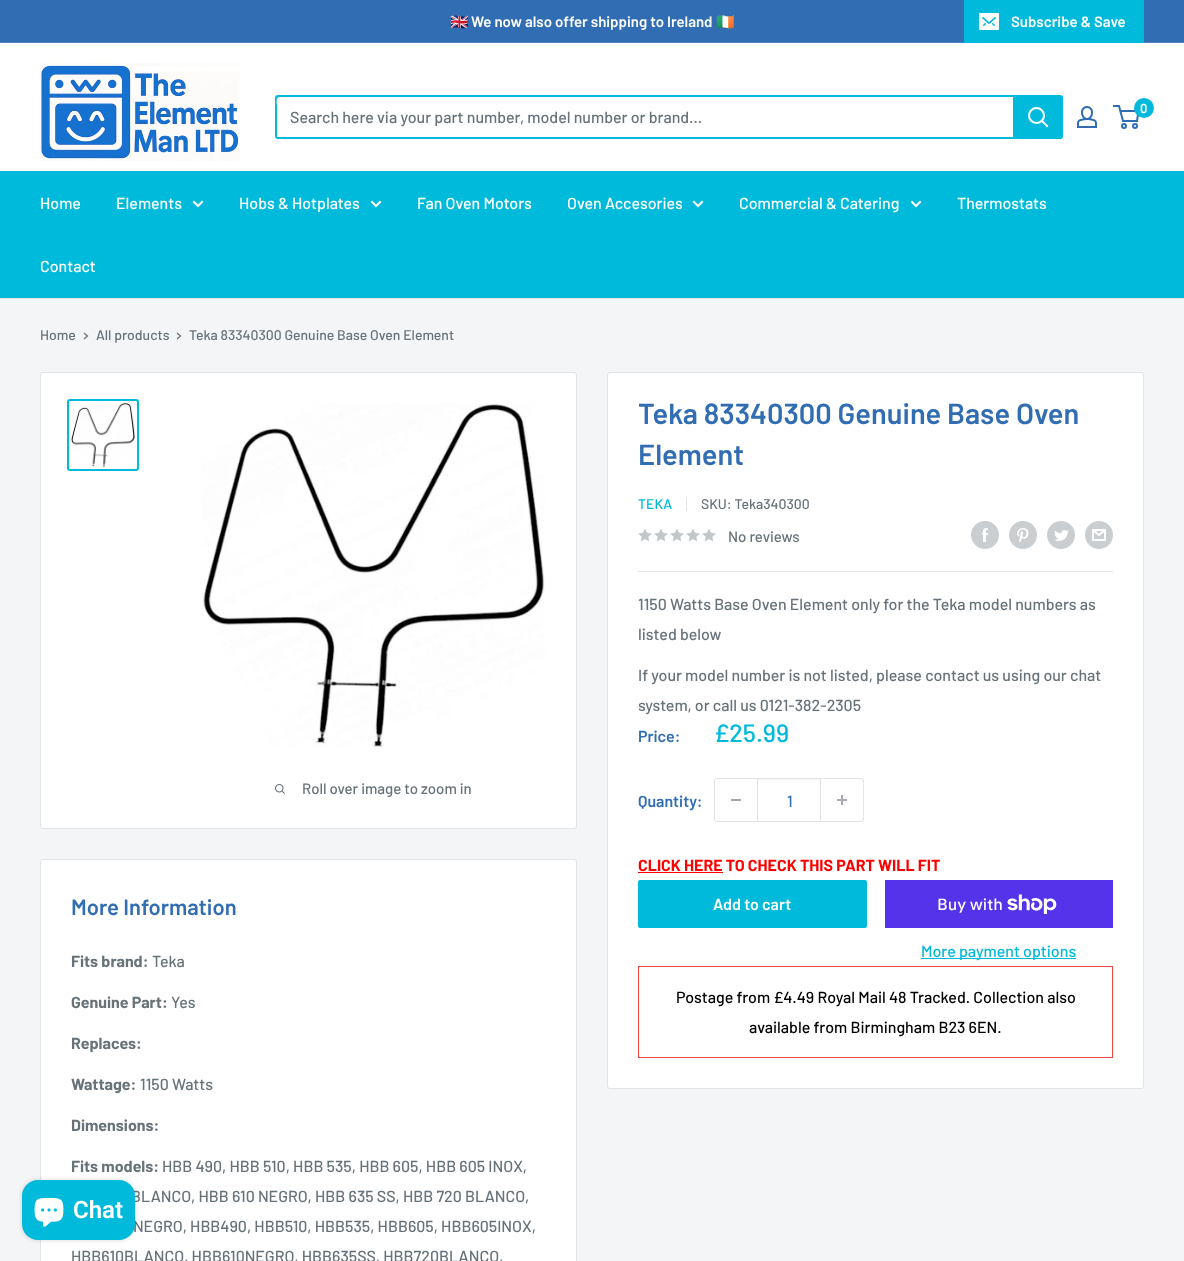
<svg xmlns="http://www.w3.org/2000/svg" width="1184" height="1261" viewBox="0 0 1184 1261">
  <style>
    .t1 { font: bold 15px Noto Color Emoji; fill: #fff; }
    .t2 { font: 600 15px Barlow; fill: #fff; }
    .t3 { font: 600 13px Barlow; fill: #fff; }
    .t4 { font: 500 16px Barlow; fill: #677279; }
    .t5 { font: 500 16px Barlow; fill: #fff; }
    .t6 { font: 500 14px Barlow; fill: #677279; }
    .t7 { font: 500 15px Barlow; fill: #677279; }
    .t8 { font: 600 29px Barlow; fill: #316db2; }
    .t9 { font: 500 14px Barlow; fill: #00badb; }
    .t10 { font: 600 16px Barlow; fill: #316db2; }
    .t11 { font: 500 25px Barlow; fill: #00badb; }
    .t12 { font: 500 16px Barlow; fill: #316db2; }
    .t13 { font: bold 16px Barlow; fill: #f00; }
    .t14 { font: 600 16px Barlow; fill: #fff; }
    .t15 { font: 500 16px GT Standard; fill: #fff; }
    .t16 { font: 500 16px Barlow; fill: #00badb; }
    .t17 { font: 500 16px Barlow; fill: #000; }
    .t18 { font: 600 22px Barlow; fill: #316db2; }
    .t19 { font: bold 16px Barlow; fill: #677279; }
    .t20 { font: 600 24px Roboto; fill: #fff; }
  </style>
  <rect width="100%" height="100%" fill="#f3f5f6"/>
  <rect x="0" y="0" width="1184" height="42" fill="#316db2"/>
  <rect x="0" y="42" width="1184" height="1" fill="#5381c4"/>
  <text x="450" y="27" class="t1">🇬🇧</text>
  <text x="471" y="27" class="t2">We now also offer shipping to Ireland</text>
  <text x="716" y="27" class="t1">🇮🇪</text>
  <rect x="964" y="0" width="180" height="43" fill="#00badb"/>
  <image x="979" y="13" width="20" height="17" href="images/1.png"/>
  <text x="1011" y="27" class="t2">Subscribe &amp; Save</text>
  <rect x="0" y="43" width="1184" height="128" fill="#fff"/>
  <image x="40" y="63" width="200" height="98" href="images/2.png"/>
  <image x="1077" y="106" width="20" height="22" href="images/3.png"/>
  <circle cx="1124" cy="126" r="2" fill="none" stroke="#316db2" stroke-width="2"/>
  <circle cx="1135" cy="126" r="2" fill="none" stroke="#316db2" stroke-width="2"/>
  <path d="M1120.5 111H1138.5L1137 121H1123L1119 106H1113" fill="none" stroke="#316db2" stroke-width="2"/>
  <circle cx="1144" cy="108" r="10" fill="#00badb"/>
  <text x="1140" y="113" class="t3">0</text>
  <path d="M275 137C276 138 277 139 278 139H1060C1062 139 1063 138 1063 136V98C1063 97 1062 96 1061 95V128C1061 130 1063 137 1058 137Z" fill="#00badb"/>
  <path d="M280 97H1063C1062 96 1061 95 1060 95H278C276 95 275 96 275 98V136C275 137 276 138 277 139V106C277 104 275 97 280 97Z" fill="#00badb"/>
  <text x="290" y="123" class="t4">Search here via your part number, model number or brand...</text>
  <path d="M1013 95H1060C1061.5 95 1063 96.5 1063 98V136C1063 137.5 1061.5 139 1060 139H1013Z" fill="#00badb"/>
  <path d="M1047 126L1042 121" fill="none" stroke="#fff" stroke-width="2" stroke-linecap="square"/>
  <circle cx="1036.5" cy="115.5" r="7.5" fill="none" stroke="#fff" stroke-width="2"/>
  <rect x="0" y="171" width="1184" height="127" fill="#00badb"/>
  <rect x="0" y="298" width="1184" height="1" fill="#e1e3e4"/>
  <text x="40" y="209" class="t5">Home</text>
  <text x="116" y="209" class="t5">Elements</text>
  <path d="M202 202L198 206L194 202" fill="none" stroke="#fff" stroke-width="2" stroke-linecap="square"/>
  <text x="239" y="209" class="t5">Hobs &amp; Hotplates</text>
  <path d="M380 202L376 206L372 202" fill="none" stroke="#fff" stroke-width="2" stroke-linecap="square"/>
  <text x="417" y="209" class="t5">Fan Oven Motors</text>
  <text x="567" y="209" class="t5">Oven Accesories</text>
  <path d="M702 202L698 206L694 202" fill="none" stroke="#fff" stroke-width="2" stroke-linecap="square"/>
  <text x="739" y="209" class="t5">Commercial &amp; Catering</text>
  <path d="M920 202L916 206L912 202" fill="none" stroke="#fff" stroke-width="2" stroke-linecap="square"/>
  <text x="957" y="209" class="t5">Thermostats</text>
  <text x="40" y="272" class="t5">Contact</text>
  <text x="40" y="340" class="t6">Home</text>
  <path d="M84.5 333.5L87.5 336L84.5 338.5" fill="none" stroke="#677279" stroke-width="1.3" stroke-linecap="square"/>
  <text x="96" y="340" class="t6">All products</text>
  <path d="M177.5 333.5L180.5 336L177.5 338.5" fill="none" stroke="#677279" stroke-width="1.3" stroke-linecap="square"/>
  <text x="189" y="340" class="t6">Teka 83340300 Genuine Base Oven Element</text>
  <rect x="40.5" y="372.5" width="536" height="456" rx="2.5" fill="#fff" stroke="#e1e3e4"/>
  <rect x="68" y="400" width="70" height="70" rx="2" fill="none" stroke="#00badb" stroke-width="2"/>
  <image x="71" y="403" width="64" height="64" href="images/4.png"/>
  <image x="201" y="403" width="344" height="345" href="images/5.png"/>
  <image x="275" y="784" width="10" height="10" href="images/6.png"/>
  <text x="302" y="794" class="t7">Roll over image to zoom in</text>
  <rect x="607.5" y="372.5" width="536" height="716" rx="2.5" fill="#fff" stroke="#e1e3e4"/>
  <text x="638" y="424" class="t8">Teka 83340300 Genuine Base Oven</text>
  <text x="638" y="465" class="t8">Element</text>
  <text x="638" y="509" class="t9">TEKA</text>
  <rect x="686" y="498" width="1" height="13" fill="#e1e3e4"/>
  <text x="701" y="509" class="t6">SKU: Teka340300</text>
  <image x="638" y="529" width="14" height="13" href="images/7.png"/>
  <image x="654" y="529" width="14" height="13" href="images/7.png"/>
  <image x="670" y="529" width="14" height="13" href="images/7.png"/>
  <image x="686" y="529" width="14" height="13" href="images/7.png"/>
  <image x="702" y="529" width="14" height="13" href="images/7.png"/>
  <text x="728" y="542" class="t7">No reviews</text>
  <image x="971" y="521" width="28" height="28" href="images/8.png"/>
  <image x="1009" y="521" width="28" height="28" href="images/9.png"/>
  <image x="1047" y="521" width="28" height="28" href="images/10.png"/>
  <image x="1085" y="521" width="28" height="28" href="images/11.png"/>
  <rect x="638" y="571" width="475" height="1" fill="#e1e3e4"/>
  <text x="638" y="610" class="t4">1150 Watts Base Oven Element only for the Teka model numbers as</text>
  <text x="638" y="640" class="t4">listed below</text>
  <text x="638" y="681" class="t4">If your model number is not listed, please contact us using our chat</text>
  <text x="638" y="711" class="t4">system, or call us 0121-382-2305</text>
  <text x="638" y="742" class="t10">Price:</text>
  <text x="714" y="742" class="t11">£25.99</text>
  <text x="638" y="807" class="t10">Quantity:</text>
  <rect x="714.5" y="778.5" width="149" height="43" rx="2.5" fill="none" stroke="#e1e3e4"/>
  <rect x="731" y="799" width="10" height="2" fill="#a4aaaf"/>
  <rect x="758" y="779" width="62" height="1" fill="#f3f4f4"/>
  <rect x="820" y="779" width="1" height="42" fill="#e1e3e4"/>
  <rect x="757" y="779" width="1" height="42" fill="#e1e3e4"/>
  <text x="787" y="807" class="t12">1</text>
  <image x="837" y="795" width="10" height="10" href="images/12.png"/>
  <text x="638" y="871" class="t13">CLICK HERE TO CHECK THIS PART WILL FIT</text>
  <rect x="638" y="872" width="85" height="1" fill="#f00"/>
  <rect x="638" y="880" width="229" height="48" rx="2" fill="#00badb"/>
  <text x="713" y="910" class="t14">Add to cart</text>
  <rect x="885" y="880" width="228" height="48" fill="#5433eb"/>
  <text x="937" y="910" class="t15">Buy with</text>
  <image x="1007" y="894" width="50" height="20" href="images/13.png"/>
  <rect x="921" y="958" width="155" height="1" fill="#00badb"/>
  <text x="921" y="957" class="t16">More payment options</text>
  <rect x="638.5" y="966.5" width="474" height="91" fill="none" stroke="#f24343"/>
  <text x="676" y="1003" class="t17">Postage from £4.49 Royal Mail 48 Tracked. Collection also</text>
  <text x="749" y="1033" class="t17">available from Birmingham B23 6EN.</text>
  <rect x="40.5" y="859.5" width="536" height="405" rx="2.5" fill="#fff" stroke="#e1e3e4"/>
  <text x="71" y="915" class="t18">More Information</text>
  <text x="71" y="967" class="t19">Fits brand:</text>
  <text x="152" y="967" class="t4">Teka</text>
  <text x="71" y="1008" class="t19">Genuine Part:</text>
  <text x="171" y="1008" class="t4">Yes</text>
  <text x="71" y="1049" class="t19">Replaces:</text>
  <text x="71" y="1090" class="t19">Wattage:</text>
  <text x="140" y="1090" class="t4">1150 Watts</text>
  <text x="71" y="1131" class="t19">Dimensions:</text>
  <text x="71" y="1172" class="t19">Fits models:</text>
  <text x="162" y="1172" class="t4">HBB 490, HBB 510, HBB 535, HBB 605, HBB 605 INOX,</text>
  <text x="131" y="1202" class="t4">BLANCO, HBB 610 NEGRO, HBB 635 SS, HBB 720 BLANCO,</text>
  <text x="133" y="1232" class="t4">NEGRO, HBB490, HBB510, HBB535, HBB605, HBB605INOX,</text>
  <text x="71" y="1262" class="t4">HBB610BLANCO, HBB610NEGRO, HBB635SS, HBB720BLANCO,</text>
  <rect x="22" y="1180" width="113" height="60" rx="16" fill="#00000026" filter="blur(2.5px)"/>
  <rect x="22" y="1180" width="113" height="60" rx="16" fill="#00badb"/>
  <image x="34" y="1198" width="30" height="29" href="images/14.png"/>
  <text x="73" y="1218" class="t20">Chat</text>
</svg>
